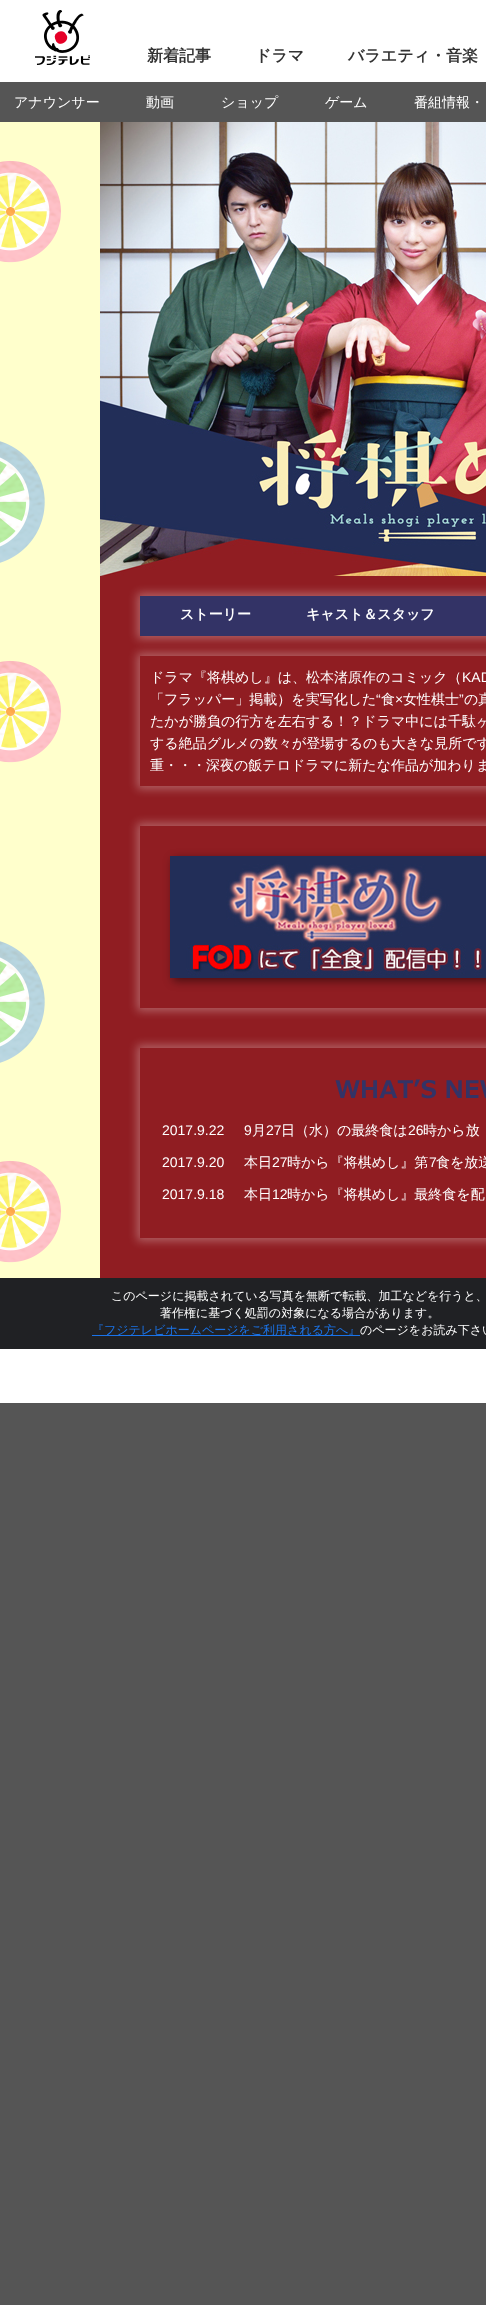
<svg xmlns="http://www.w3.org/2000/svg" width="486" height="2305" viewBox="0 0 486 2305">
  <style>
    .t1 { font: bold 16px WenQuanYi Zen Hei; fill: #333; }
    .t2 { font: 500 14px WenQuanYi Zen Hei; fill: #fff; }
    .t3 { font: bold 14px WenQuanYi Zen Hei; fill: #fff; }
    .t4 { font: 14px Liberation Sans; fill: #fff; }
    .t5 { font: 500 12px WenQuanYi Zen Hei; fill: #fff; }
    .t6 { font: 500 12px WenQuanYi Zen Hei; fill: #1a73e8; }
  </style>
  <defs>
    <clipPath id="clip1"><path d="M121 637H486V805H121ZM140 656H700V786H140Z" clip-rule="evenodd"/></clipPath>
    <clipPath id="clip2"><path d="M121 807H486V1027H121ZM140 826H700V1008H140Z" clip-rule="evenodd"/></clipPath>
    <clipPath id="clip3"><path d="M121 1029H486V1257H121ZM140 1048H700V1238H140Z" clip-rule="evenodd"/></clipPath>
  </defs>
  <rect width="100%" height="100%" fill="#555"/>
  <rect x="0" y="0" width="486" height="82" fill="#fff"/>
  <image x="35" y="10" width="55" height="55" href="images/1.png"/>
  <text x="147" y="61" class="t1">新着記事</text>
  <text x="255" y="61" class="t1">ドラマ</text>
  <text x="348" y="61" class="t1">バラエティ・音楽</text>
  <text x="14" y="107" class="t2">アナウンサー</text>
  <text x="146" y="107" class="t2">動画</text>
  <text x="221" y="107" class="t2">ショップ</text>
  <text x="325" y="107" class="t2">ゲーム</text>
  <text x="414" y="107" class="t2">番組情報・</text>
  <rect x="0" y="122" width="100" height="1156" fill="#ffc"/>
  <image x="0" y="160" width="61" height="1103" href="images/2.png"/>
  <image x="100" y="122" width="386" height="454" href="images/3.png"/>
  <rect x="100" y="576" width="386" height="702" fill="#901d22"/>
  <rect x="137" y="593" width="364" height="46" fill="#ffffff4d" filter="blur(5px)"/>
  <rect x="140" y="596" width="346" height="40" fill="#336"/>
  <text x="180" y="619" class="t3">ストーリー</text>
  <text x="306" y="619" class="t3">キャスト＆スタッフ</text>
  <g clip-path="url(#clip1)">
    <rect x="137" y="653" width="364" height="136" fill="#ffffff4d" filter="blur(5px)"/>
  </g>
  <text x="150" y="682" class="t2">ドラマ『将棋めし』は、松本渚原作のコミック（</text>
  <text x="462" y="682" class="t4">KAD</text>
  <text x="150" y="704" class="t2">「フラッパー」掲載）を実写化した</text>
  <text x="376" y="704" class="t4">“</text>
  <text x="381" y="704" class="t2">食</text>
  <text x="395" y="704" class="t4">×</text>
  <text x="403" y="704" class="t2">女性棋士</text>
  <text x="459" y="704" class="t4">”</text>
  <text x="464" y="704" class="t2">の真</text>
  <text x="150" y="726" class="t2">たかが勝負の行方を左右する！？ドラマ中には千駄ヶ</text>
  <text x="150" y="748" class="t2">する絶品グルメの数々が登場するのも大きな見所です</text>
  <text x="150" y="770" class="t2">重・・・深夜の飯テロドラマに新たな作品が加わりま</text>
  <g clip-path="url(#clip2)">
    <rect x="137" y="823" width="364" height="188" fill="#ffffff4d" filter="blur(5px)"/>
  </g>
  <rect x="173" y="859" width="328" height="122" fill="#00000080" filter="blur(5px)"/>
  <image x="170" y="856" width="316" height="122" href="images/4.png"/>
  <g clip-path="url(#clip3)">
    <rect x="137" y="1045" width="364" height="196" fill="#ffffff4d" filter="blur(5px)"/>
  </g>
  <image x="335" y="1079" width="151" height="20" href="images/5.png"/>
  <text x="162" y="1135" class="t4">2017.9.22</text>
  <text x="244" y="1135" class="t4">9</text>
  <text x="252" y="1135" class="t2">月</text>
  <text x="266" y="1135" class="t4">27</text>
  <text x="281" y="1135" class="t2">日（水）の最終食は</text>
  <text x="408" y="1135" class="t4">26</text>
  <text x="423" y="1135" class="t2">時から放</text>
  <text x="162" y="1167" class="t4">2017.9.20</text>
  <text x="244" y="1167" class="t2">本日</text>
  <text x="272" y="1167" class="t4">27</text>
  <text x="287" y="1167" class="t2">時から『将棋めし』第</text>
  <text x="429" y="1167" class="t4">7</text>
  <text x="436" y="1167" class="t2">食を放送</text>
  <text x="162" y="1199" class="t4">2017.9.18</text>
  <text x="244" y="1199" class="t2">本日</text>
  <text x="272" y="1199" class="t4">12</text>
  <text x="287" y="1199" class="t2">時から『将棋めし』最終食を配</text>
  <rect x="0" y="1278" width="486" height="71" fill="#202124"/>
  <text x="111" y="1300" class="t5">このページに掲載されている写真を無断で転載、加工などを行うと、</text>
  <text x="160" y="1317" class="t5">著作権に基づく処罰の対象になる場合があります。</text>
  <rect x="92" y="1335" width="268" height="1" fill="#1a73e8"/>
  <text x="92" y="1334" class="t6">『フジテレビホームページをご利用される方へ』</text>
  <text x="360" y="1334" class="t5">のページをお読み下さい</text>
  <rect x="0" y="1349" width="486" height="54" fill="#fff"/>
</svg>
